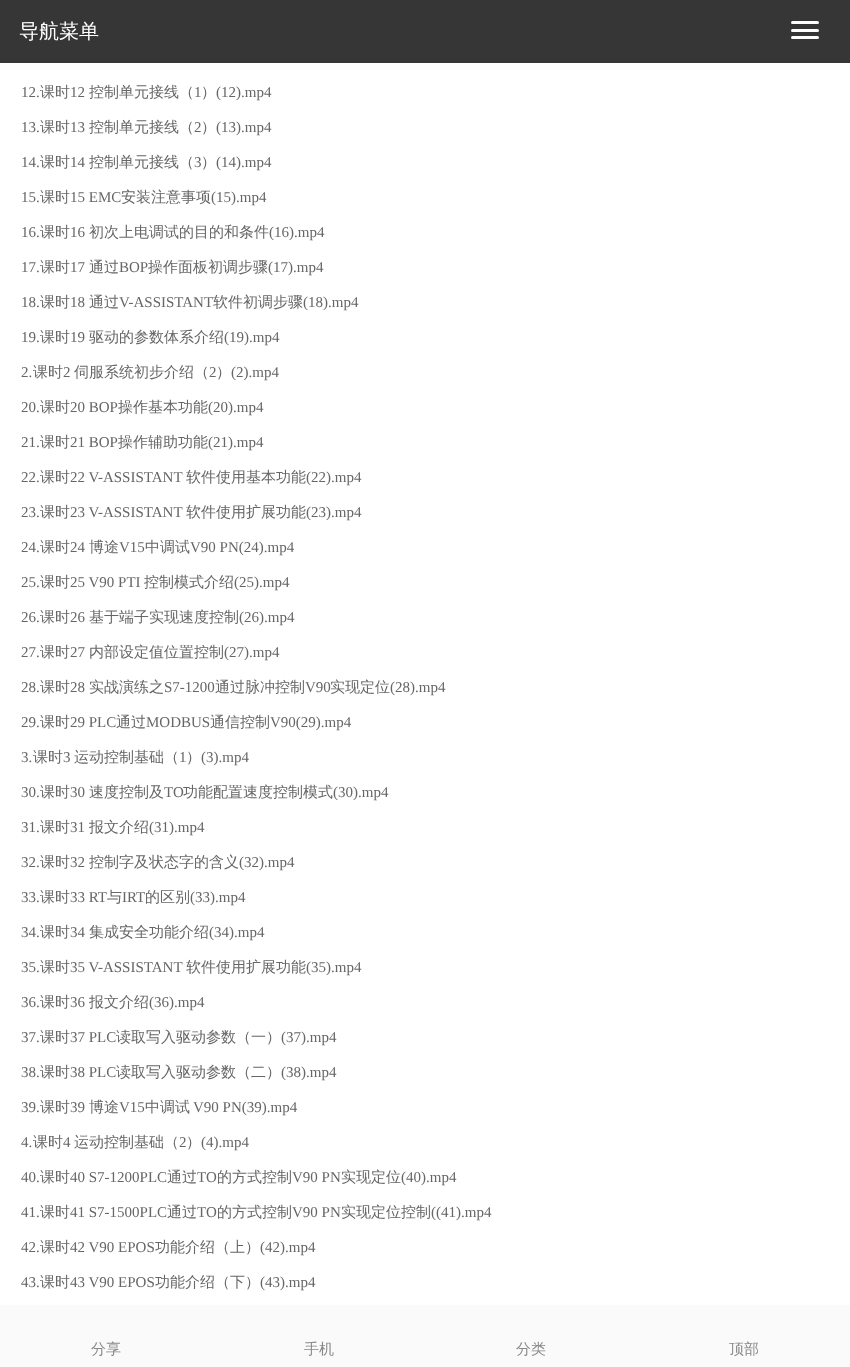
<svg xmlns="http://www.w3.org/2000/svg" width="850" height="1367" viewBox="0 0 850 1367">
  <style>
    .t1 { font: 500 20px WenQuanYi Zen Hei; fill: #fff; }
    .t2 { font: 15px Liberation Serif; fill: #666; }
    .t3 { font: 500 15px WenQuanYi Zen Hei; fill: #666; }
    .t4 { font: 500 15px WenQuanYi Zen Hei; fill: #898989; }
  </style>
  <rect width="100%" height="100%" fill="#fff"/>
  <rect x="0" y="0" width="850" height="63" fill="#202020e6"/>
  <text x="19" y="38" class="t1">导航菜单</text>
  <rect x="791" y="21" width="28" height="3" rx="1.5" fill="#fff"/>
  <rect x="791" y="29" width="28" height="3" rx="1.5" fill="#fff"/>
  <rect x="791" y="36" width="28" height="3" rx="1.5" fill="#fff"/>
  <text x="21" y="97" class="t2">12.</text>
  <text x="40" y="97" class="t3">课时</text>
  <text x="70" y="97" class="t2">12</text>
  <text x="89" y="97" class="t3">控制单元接线（</text>
  <text x="194" y="97" class="t2">1</text>
  <text x="201" y="97" class="t3">）</text>
  <text x="216" y="97" class="t2">(12).mp4</text>
  <text x="21" y="132" class="t2">13.</text>
  <text x="40" y="132" class="t3">课时</text>
  <text x="70" y="132" class="t2">13</text>
  <text x="89" y="132" class="t3">控制单元接线（</text>
  <text x="194" y="132" class="t2">2</text>
  <text x="201" y="132" class="t3">）</text>
  <text x="216" y="132" class="t2">(13).mp4</text>
  <text x="21" y="167" class="t2">14.</text>
  <text x="40" y="167" class="t3">课时</text>
  <text x="70" y="167" class="t2">14</text>
  <text x="89" y="167" class="t3">控制单元接线（</text>
  <text x="194" y="167" class="t2">3</text>
  <text x="201" y="167" class="t3">）</text>
  <text x="216" y="167" class="t2">(14).mp4</text>
  <text x="21" y="202" class="t2">15.</text>
  <text x="40" y="202" class="t3">课时</text>
  <text x="70" y="202" class="t2">15 EMC</text>
  <text x="121" y="202" class="t3">安装注意事项</text>
  <text x="211" y="202" class="t2">(15).mp4</text>
  <text x="21" y="237" class="t2">16.</text>
  <text x="40" y="237" class="t3">课时</text>
  <text x="70" y="237" class="t2">16</text>
  <text x="89" y="237" class="t3">初次上电调试的目的和条件</text>
  <text x="269" y="237" class="t2">(16).mp4</text>
  <text x="21" y="272" class="t2">17.</text>
  <text x="40" y="272" class="t3">课时</text>
  <text x="70" y="272" class="t2">17</text>
  <text x="89" y="272" class="t3">通过</text>
  <text x="119" y="272" class="t2">BOP</text>
  <text x="148" y="272" class="t3">操作面板初调步骤</text>
  <text x="268" y="272" class="t2">(17).mp4</text>
  <text x="21" y="307" class="t2">18.</text>
  <text x="40" y="307" class="t3">课时</text>
  <text x="70" y="307" class="t2">18</text>
  <text x="89" y="307" class="t3">通过</text>
  <text x="119" y="307" class="t2">V-ASSISTANT</text>
  <text x="213" y="307" class="t3">软件初调步骤</text>
  <text x="303" y="307" class="t2">(18).mp4</text>
  <text x="21" y="342" class="t2">19.</text>
  <text x="40" y="342" class="t3">课时</text>
  <text x="70" y="342" class="t2">19</text>
  <text x="89" y="342" class="t3">驱动的参数体系介绍</text>
  <text x="224" y="342" class="t2">(19).mp4</text>
  <text x="21" y="377" class="t2">2.</text>
  <text x="33" y="377" class="t3">课时</text>
  <text x="63" y="377" class="t2">2</text>
  <text x="74" y="377" class="t3">伺服系统初步介绍（</text>
  <text x="209" y="377" class="t2">2</text>
  <text x="216" y="377" class="t3">）</text>
  <text x="231" y="377" class="t2">(2).mp4</text>
  <text x="21" y="412" class="t2">20.</text>
  <text x="40" y="412" class="t3">课时</text>
  <text x="70" y="412" class="t2">20 BOP</text>
  <text x="118" y="412" class="t3">操作基本功能</text>
  <text x="208" y="412" class="t2">(20).mp4</text>
  <text x="21" y="447" class="t2">21.</text>
  <text x="40" y="447" class="t3">课时</text>
  <text x="70" y="447" class="t2">21 BOP</text>
  <text x="118" y="447" class="t3">操作辅助功能</text>
  <text x="208" y="447" class="t2">(21).mp4</text>
  <text x="21" y="482" class="t2">22.</text>
  <text x="40" y="482" class="t3">课时</text>
  <text x="70" y="482" class="t2">22 V-ASSISTANT</text>
  <text x="186" y="482" class="t3">软件使用基本功能</text>
  <text x="306" y="482" class="t2">(22).mp4</text>
  <text x="21" y="517" class="t2">23.</text>
  <text x="40" y="517" class="t3">课时</text>
  <text x="70" y="517" class="t2">23 V-ASSISTANT</text>
  <text x="186" y="517" class="t3">软件使用扩展功能</text>
  <text x="306" y="517" class="t2">(23).mp4</text>
  <text x="21" y="552" class="t2">24.</text>
  <text x="40" y="552" class="t3">课时</text>
  <text x="70" y="552" class="t2">24</text>
  <text x="89" y="552" class="t3">博途</text>
  <text x="119" y="552" class="t2">V15</text>
  <text x="145" y="552" class="t3">中调试</text>
  <text x="190" y="552" class="t2">V90 PN(24).mp4</text>
  <text x="21" y="587" class="t2">25.</text>
  <text x="40" y="587" class="t3">课时</text>
  <text x="70" y="587" class="t2">25 V90 PTI</text>
  <text x="144" y="587" class="t3">控制模式介绍</text>
  <text x="234" y="587" class="t2">(25).mp4</text>
  <text x="21" y="622" class="t2">26.</text>
  <text x="40" y="622" class="t3">课时</text>
  <text x="70" y="622" class="t2">26</text>
  <text x="89" y="622" class="t3">基于端子实现速度控制</text>
  <text x="239" y="622" class="t2">(26).mp4</text>
  <text x="21" y="657" class="t2">27.</text>
  <text x="40" y="657" class="t3">课时</text>
  <text x="70" y="657" class="t2">27</text>
  <text x="89" y="657" class="t3">内部设定值位置控制</text>
  <text x="224" y="657" class="t2">(27).mp4</text>
  <text x="21" y="692" class="t2">28.</text>
  <text x="40" y="692" class="t3">课时</text>
  <text x="70" y="692" class="t2">28</text>
  <text x="89" y="692" class="t3">实战演练之</text>
  <text x="164" y="692" class="t2">S7-1200</text>
  <text x="215" y="692" class="t3">通过脉冲控制</text>
  <text x="305" y="692" class="t2">V90</text>
  <text x="330" y="692" class="t3">实现定位</text>
  <text x="390" y="692" class="t2">(28).mp4</text>
  <text x="21" y="727" class="t2">29.</text>
  <text x="40" y="727" class="t3">课时</text>
  <text x="70" y="727" class="t2">29 PLC</text>
  <text x="116" y="727" class="t3">通过</text>
  <text x="146" y="727" class="t2">MODBUS</text>
  <text x="210" y="727" class="t3">通信控制</text>
  <text x="270" y="727" class="t2">V90(29).mp4</text>
  <text x="21" y="762" class="t2">3.</text>
  <text x="33" y="762" class="t3">课时</text>
  <text x="63" y="762" class="t2">3</text>
  <text x="74" y="762" class="t3">运动控制基础（</text>
  <text x="179" y="762" class="t2">1</text>
  <text x="186" y="762" class="t3">）</text>
  <text x="201" y="762" class="t2">(3).mp4</text>
  <text x="21" y="797" class="t2">30.</text>
  <text x="40" y="797" class="t3">课时</text>
  <text x="70" y="797" class="t2">30</text>
  <text x="89" y="797" class="t3">速度控制及</text>
  <text x="164" y="797" class="t2">TO</text>
  <text x="183" y="797" class="t3">功能配置速度控制模式</text>
  <text x="333" y="797" class="t2">(30).mp4</text>
  <text x="21" y="832" class="t2">31.</text>
  <text x="40" y="832" class="t3">课时</text>
  <text x="70" y="832" class="t2">31</text>
  <text x="89" y="832" class="t3">报文介绍</text>
  <text x="149" y="832" class="t2">(31).mp4</text>
  <text x="21" y="867" class="t2">32.</text>
  <text x="40" y="867" class="t3">课时</text>
  <text x="70" y="867" class="t2">32</text>
  <text x="89" y="867" class="t3">控制字及状态字的含义</text>
  <text x="239" y="867" class="t2">(32).mp4</text>
  <text x="21" y="902" class="t2">33.</text>
  <text x="40" y="902" class="t3">课时</text>
  <text x="70" y="902" class="t2">33 RT</text>
  <text x="107" y="902" class="t3">与</text>
  <text x="122" y="902" class="t2">IRT</text>
  <text x="145" y="902" class="t3">的区别</text>
  <text x="190" y="902" class="t2">(33).mp4</text>
  <text x="21" y="937" class="t2">34.</text>
  <text x="40" y="937" class="t3">课时</text>
  <text x="70" y="937" class="t2">34</text>
  <text x="89" y="937" class="t3">集成安全功能介绍</text>
  <text x="209" y="937" class="t2">(34).mp4</text>
  <text x="21" y="972" class="t2">35.</text>
  <text x="40" y="972" class="t3">课时</text>
  <text x="70" y="972" class="t2">35 V-ASSISTANT</text>
  <text x="186" y="972" class="t3">软件使用扩展功能</text>
  <text x="306" y="972" class="t2">(35).mp4</text>
  <text x="21" y="1007" class="t2">36.</text>
  <text x="40" y="1007" class="t3">课时</text>
  <text x="70" y="1007" class="t2">36</text>
  <text x="89" y="1007" class="t3">报文介绍</text>
  <text x="149" y="1007" class="t2">(36).mp4</text>
  <text x="21" y="1042" class="t2">37.</text>
  <text x="40" y="1042" class="t3">课时</text>
  <text x="70" y="1042" class="t2">37 PLC</text>
  <text x="116" y="1042" class="t3">读取写入驱动参数（一）</text>
  <text x="281" y="1042" class="t2">(37).mp4</text>
  <text x="21" y="1077" class="t2">38.</text>
  <text x="40" y="1077" class="t3">课时</text>
  <text x="70" y="1077" class="t2">38 PLC</text>
  <text x="116" y="1077" class="t3">读取写入驱动参数（二）</text>
  <text x="281" y="1077" class="t2">(38).mp4</text>
  <text x="21" y="1112" class="t2">39.</text>
  <text x="40" y="1112" class="t3">课时</text>
  <text x="70" y="1112" class="t2">39</text>
  <text x="89" y="1112" class="t3">博途</text>
  <text x="119" y="1112" class="t2">V15</text>
  <text x="145" y="1112" class="t3">中调试</text>
  <text x="193" y="1112" class="t2">V90 PN(39).mp4</text>
  <text x="21" y="1147" class="t2">4.</text>
  <text x="33" y="1147" class="t3">课时</text>
  <text x="63" y="1147" class="t2">4</text>
  <text x="74" y="1147" class="t3">运动控制基础（</text>
  <text x="179" y="1147" class="t2">2</text>
  <text x="186" y="1147" class="t3">）</text>
  <text x="201" y="1147" class="t2">(4).mp4</text>
  <text x="21" y="1182" class="t2">40.</text>
  <text x="40" y="1182" class="t3">课时</text>
  <text x="70" y="1182" class="t2">40 S7-1200PLC</text>
  <text x="167" y="1182" class="t3">通过</text>
  <text x="197" y="1182" class="t2">TO</text>
  <text x="217" y="1182" class="t3">的方式控制</text>
  <text x="292" y="1182" class="t2">V90 PN</text>
  <text x="341" y="1182" class="t3">实现定位</text>
  <text x="401" y="1182" class="t2">(40).mp4</text>
  <text x="21" y="1217" class="t2">41.</text>
  <text x="40" y="1217" class="t3">课时</text>
  <text x="70" y="1217" class="t2">41 S7-1500PLC</text>
  <text x="167" y="1217" class="t3">通过</text>
  <text x="197" y="1217" class="t2">TO</text>
  <text x="217" y="1217" class="t3">的方式控制</text>
  <text x="292" y="1217" class="t2">V90 PN</text>
  <text x="341" y="1217" class="t3">实现定位控制</text>
  <text x="431" y="1217" class="t2">((41).mp4</text>
  <text x="21" y="1252" class="t2">42.</text>
  <text x="40" y="1252" class="t3">课时</text>
  <text x="70" y="1252" class="t2">42 V90 EPOS</text>
  <text x="155" y="1252" class="t3">功能介绍（上）</text>
  <text x="260" y="1252" class="t2">(42).mp4</text>
  <text x="21" y="1287" class="t2">43.</text>
  <text x="40" y="1287" class="t3">课时</text>
  <text x="70" y="1287" class="t2">43 V90 EPOS</text>
  <text x="155" y="1287" class="t3">功能介绍（下）</text>
  <text x="260" y="1287" class="t2">(43).mp4</text>
  <rect x="0" y="1305" width="850" height="62" fill="#fafafa"/>
  <text x="91" y="1354" class="t4">分享</text>
  <text x="304" y="1354" class="t4">手机</text>
  <text x="516" y="1354" class="t4">分类</text>
  <text x="729" y="1354" class="t4">顶部</text>
</svg>
